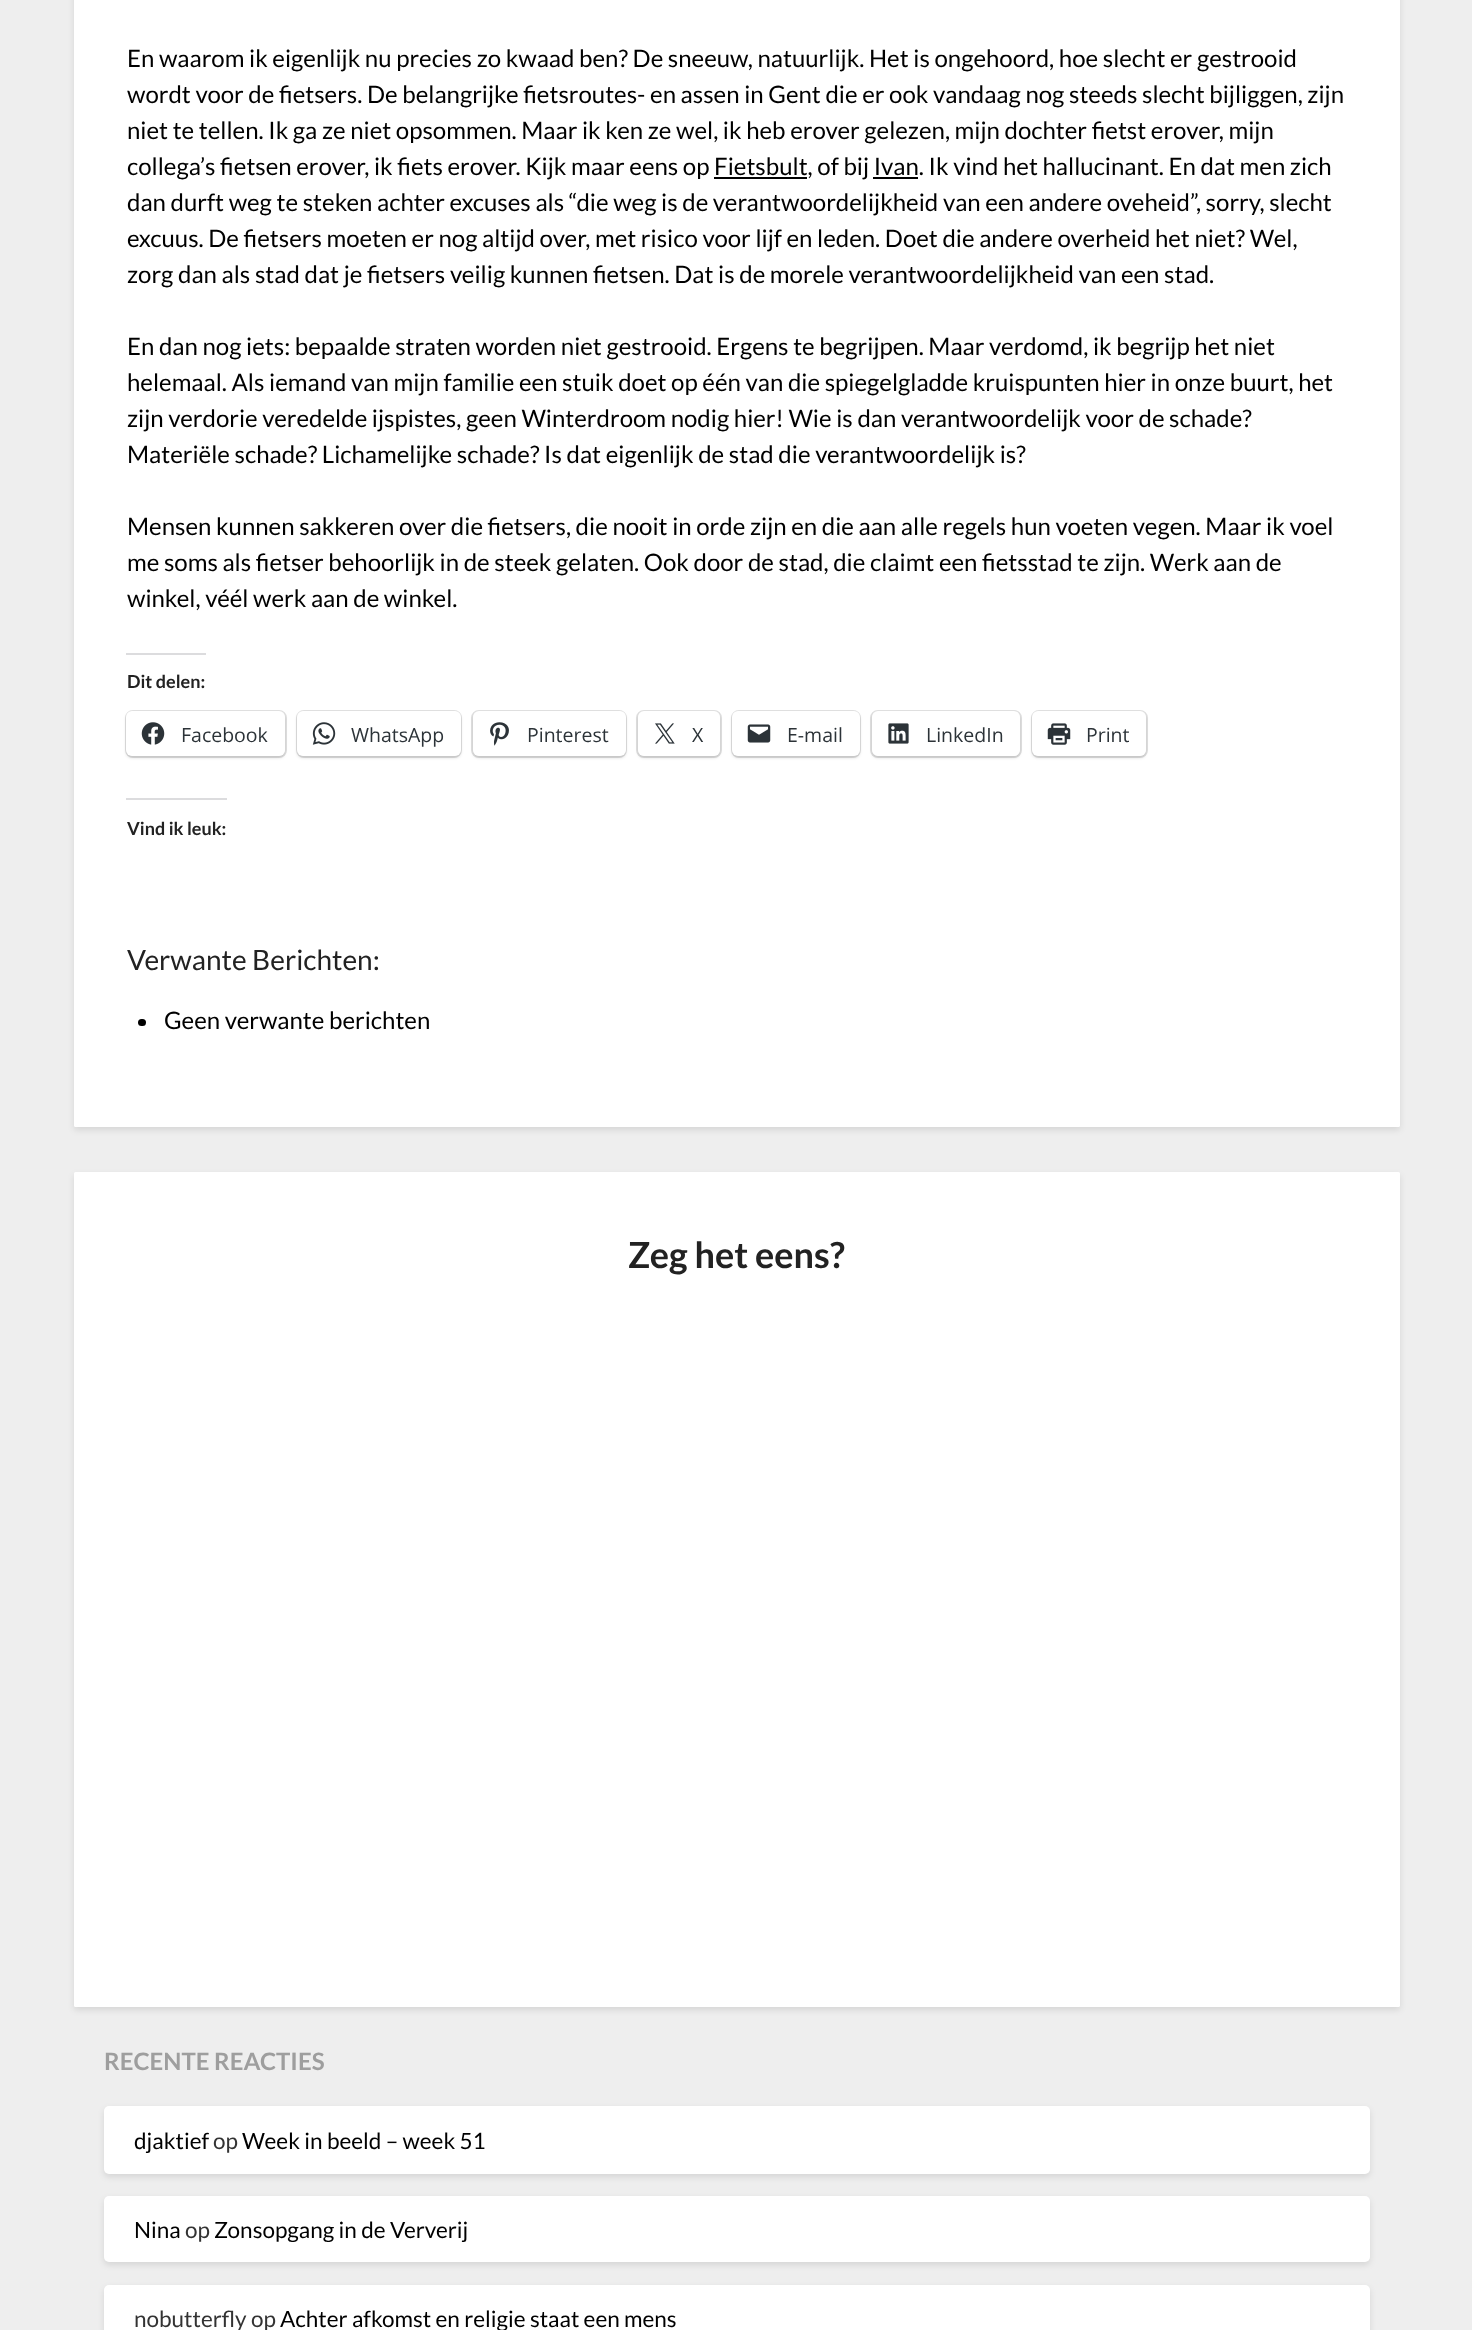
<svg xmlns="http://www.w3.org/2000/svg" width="1472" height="2330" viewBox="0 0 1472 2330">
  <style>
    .t1 { font: 24px Lato; fill: #000; }
    .t2 { font: bold 18px Lato; fill: #222; }
    .t3 { font: 19.5px Open Sans; fill: #2c3338; }
    .t4 { font: 28px Lato; fill: #222; }
    .t5 { font: bold 36px Lato; fill: #222; }
    .t6 { font: bold 24px Lato; fill: #9e9e9e; }
    .t7 { font: 22.5px Lato; fill: #000; }
    .t8 { font: 22.5px Lato; fill: #333; }
  </style>
  <rect width="100%" height="100%" fill="#eee"/>
  <rect x="74" y="-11" width="1326" height="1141" rx="1.5" fill="#0000001a" filter="blur(3px)"/>
  <rect x="74" y="-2" width="1326" height="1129" rx="1.5" fill="#fff"/>
  <text x="127" y="67" class="t1">En waarom ik eigenlijk nu precies zo kwaad ben? De sneeuw, natuurlijk. Het is ongehoord, hoe slecht er gestrooid</text>
  <text x="127" y="103" class="t1">wordt voor de fietsers. De belangrijke fietsroutes- en assen in Gent die er ook vandaag nog steeds slecht bijliggen, zijn</text>
  <text x="127" y="139" class="t1">niet te tellen. Ik ga ze niet opsommen. Maar ik ken ze wel, ik heb erover gelezen, mijn dochter fietst erover, mijn</text>
  <text x="127" y="175" class="t1">collega’s fietsen erover, ik fiets erover. Kijk maar eens op Fietsbult, of bij Ivan. Ik vind het hallucinant. En dat men zich</text>
  <rect x="714" y="177" width="93" height="2" fill="#000"/>
  <rect x="873" y="177" width="45" height="2" fill="#000"/>
  <text x="127" y="211" class="t1">dan durft weg te steken achter excuses als “die weg is de verantwoordelijkheid van een andere oveheid”, sorry, slecht</text>
  <text x="127" y="247" class="t1">excuus. De fietsers moeten er nog altijd over, met risico voor lijf en leden. Doet die andere overheid het niet? Wel,</text>
  <text x="127" y="283" class="t1">zorg dan als stad dat je fietsers veilig kunnen fietsen. Dat is de morele verantwoordelijkheid van een stad.</text>
  <text x="127" y="355" class="t1">En dan nog iets: bepaalde straten worden niet gestrooid. Ergens te begrijpen. Maar verdomd, ik begrijp het niet</text>
  <text x="127" y="391" class="t1">helemaal. Als iemand van mijn familie een stuik doet op één van die spiegelgladde kruispunten hier in onze buurt, het</text>
  <text x="127" y="427" class="t1">zijn verdorie veredelde ijspistes, geen Winterdroom nodig hier! Wie is dan verantwoordelijk voor de schade?</text>
  <text x="127" y="463" class="t1">Materiële schade? Lichamelijke schade? Is dat eigenlijk de stad die verantwoordelijk is?</text>
  <text x="127" y="535" class="t1">Mensen kunnen sakkeren over die fietsers, die nooit in orde zijn en die aan alle regels hun voeten vegen. Maar ik voel</text>
  <text x="127" y="571" class="t1">me soms als fietser behoorlijk in de steek gelaten. Ook door de stad, die claimt een fietsstad te zijn. Werk aan de</text>
  <text x="127" y="607" class="t1">winkel, véél werk aan de winkel.</text>
  <rect x="126" y="653" width="80" height="2" fill="#dcdcde"/>
  <text x="127" y="688" class="t2">Dit delen:</text>
  <rect x="126" y="711" width="160" height="46" rx="7" fill="none" stroke="#e0e0e0" stroke-width="2"/>
  <rect x="126" y="713" width="159" height="45" rx="6" fill="#0000001f" filter="blur(1.5px)"/>
  <rect x="126" y="711" width="159" height="45" rx="6" fill="#fff"/>
  <image x="141" y="722" width="24" height="23" href="images/1.png"/>
  <text x="181" y="742" class="t3">Facebook</text>
  <rect x="297" y="711" width="164" height="46" rx="7" fill="none" stroke="#e0e0e0" stroke-width="2"/>
  <rect x="297" y="713" width="164" height="45" rx="6" fill="#0000001f" filter="blur(1.5px)"/>
  <rect x="297" y="711" width="164" height="45" rx="6" fill="#fff"/>
  <image x="312" y="722" width="24" height="23" href="images/2.png"/>
  <text x="351" y="742" class="t3">WhatsApp</text>
  <rect x="472" y="711" width="154" height="46" rx="7" fill="none" stroke="#e0e0e0" stroke-width="2"/>
  <rect x="473" y="713" width="153" height="45" rx="6" fill="#0000001f" filter="blur(1.5px)"/>
  <rect x="473" y="711" width="153" height="45" rx="6" fill="#fff"/>
  <image x="490" y="722" width="19" height="24" href="images/3.png"/>
  <text x="527" y="742" class="t3">Pinterest</text>
  <rect x="637" y="711" width="84" height="46" rx="7" fill="none" stroke="#e0e0e0" stroke-width="2"/>
  <rect x="638" y="713" width="82" height="45" rx="6" fill="#0000001f" filter="blur(1.5px)"/>
  <rect x="638" y="711" width="82" height="45" rx="6" fill="#fff"/>
  <image x="655" y="723" width="20" height="21" href="images/4.png"/>
  <text x="692" y="742" class="t3">X</text>
  <rect x="732" y="711" width="128" height="46" rx="7" fill="none" stroke="#e0e0e0" stroke-width="2"/>
  <rect x="732" y="713" width="128" height="45" rx="6" fill="#0000001f" filter="blur(1.5px)"/>
  <rect x="732" y="711" width="128" height="45" rx="6" fill="#fff"/>
  <image x="747" y="724" width="24" height="19" href="images/5.png"/>
  <text x="787" y="742" class="t3">E-mail</text>
  <rect x="871" y="711" width="150" height="46" rx="7" fill="none" stroke="#e0e0e0" stroke-width="2"/>
  <rect x="872" y="713" width="148" height="45" rx="6" fill="#0000001f" filter="blur(1.5px)"/>
  <rect x="872" y="711" width="148" height="45" rx="6" fill="#fff"/>
  <image x="888" y="723" width="21" height="21" href="images/6.png"/>
  <text x="926" y="742" class="t3">LinkedIn</text>
  <rect x="1032" y="711" width="115" height="46" rx="7" fill="none" stroke="#e0e0e0" stroke-width="2"/>
  <rect x="1032" y="713" width="114" height="45" rx="6" fill="#0000001f" filter="blur(1.5px)"/>
  <rect x="1032" y="711" width="114" height="45" rx="6" fill="#fff"/>
  <image x="1047" y="723" width="24" height="22" href="images/7.png"/>
  <text x="1086" y="742" class="t3">Print</text>
  <rect x="126" y="798" width="101" height="2" fill="#dcdcde"/>
  <text x="127" y="835" class="t2">Vind ik leuk:</text>
  <text x="127" y="970" class="t4">Verwante Berichten:</text>
  <rect x="138" y="1019" width="8" height="7" rx="3.5" fill="#000"/>
  <text x="164" y="1029" class="t1">Geen verwante berichten</text>
  <rect x="74" y="1175" width="1326" height="835" rx="1.5" fill="#0000001a" filter="blur(3px)"/>
  <rect x="74" y="1172" width="1326" height="835" rx="1.5" fill="#fff"/>
  <text x="628" y="1268" class="t5">Zeg het eens?</text>
  <text x="104" y="2070" class="t6">RECENTE REACTIES</text>
  <rect x="104" y="2109" width="1266" height="68" rx="5" fill="#0000001a" filter="blur(3px)"/>
  <rect x="104" y="2106" width="1266" height="68" rx="5" fill="#fff"/>
  <text x="134" y="2149" class="t7">djaktief</text>
  <text x="213" y="2149" class="t8">op</text>
  <text x="242" y="2149" class="t7">Week in beeld – week 51</text>
  <rect x="104" y="2199" width="1266" height="66" rx="5" fill="#0000001a" filter="blur(3px)"/>
  <rect x="104" y="2196" width="1266" height="66" rx="5" fill="#fff"/>
  <text x="134" y="2238" class="t7">Nina</text>
  <text x="185" y="2238" class="t8">op</text>
  <text x="214" y="2238" class="t7">Zonsopgang in de Ververij</text>
  <rect x="104" y="2288" width="1266" height="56" rx="5" fill="#0000001a" filter="blur(3px)"/>
  <rect x="104" y="2285" width="1266" height="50" rx="5" fill="#fff"/>
  <text x="134" y="2327" class="t8">nobutterfly op</text>
  <text x="280" y="2327" class="t7">Achter afkomst en religie staat een mens</text>
</svg>
